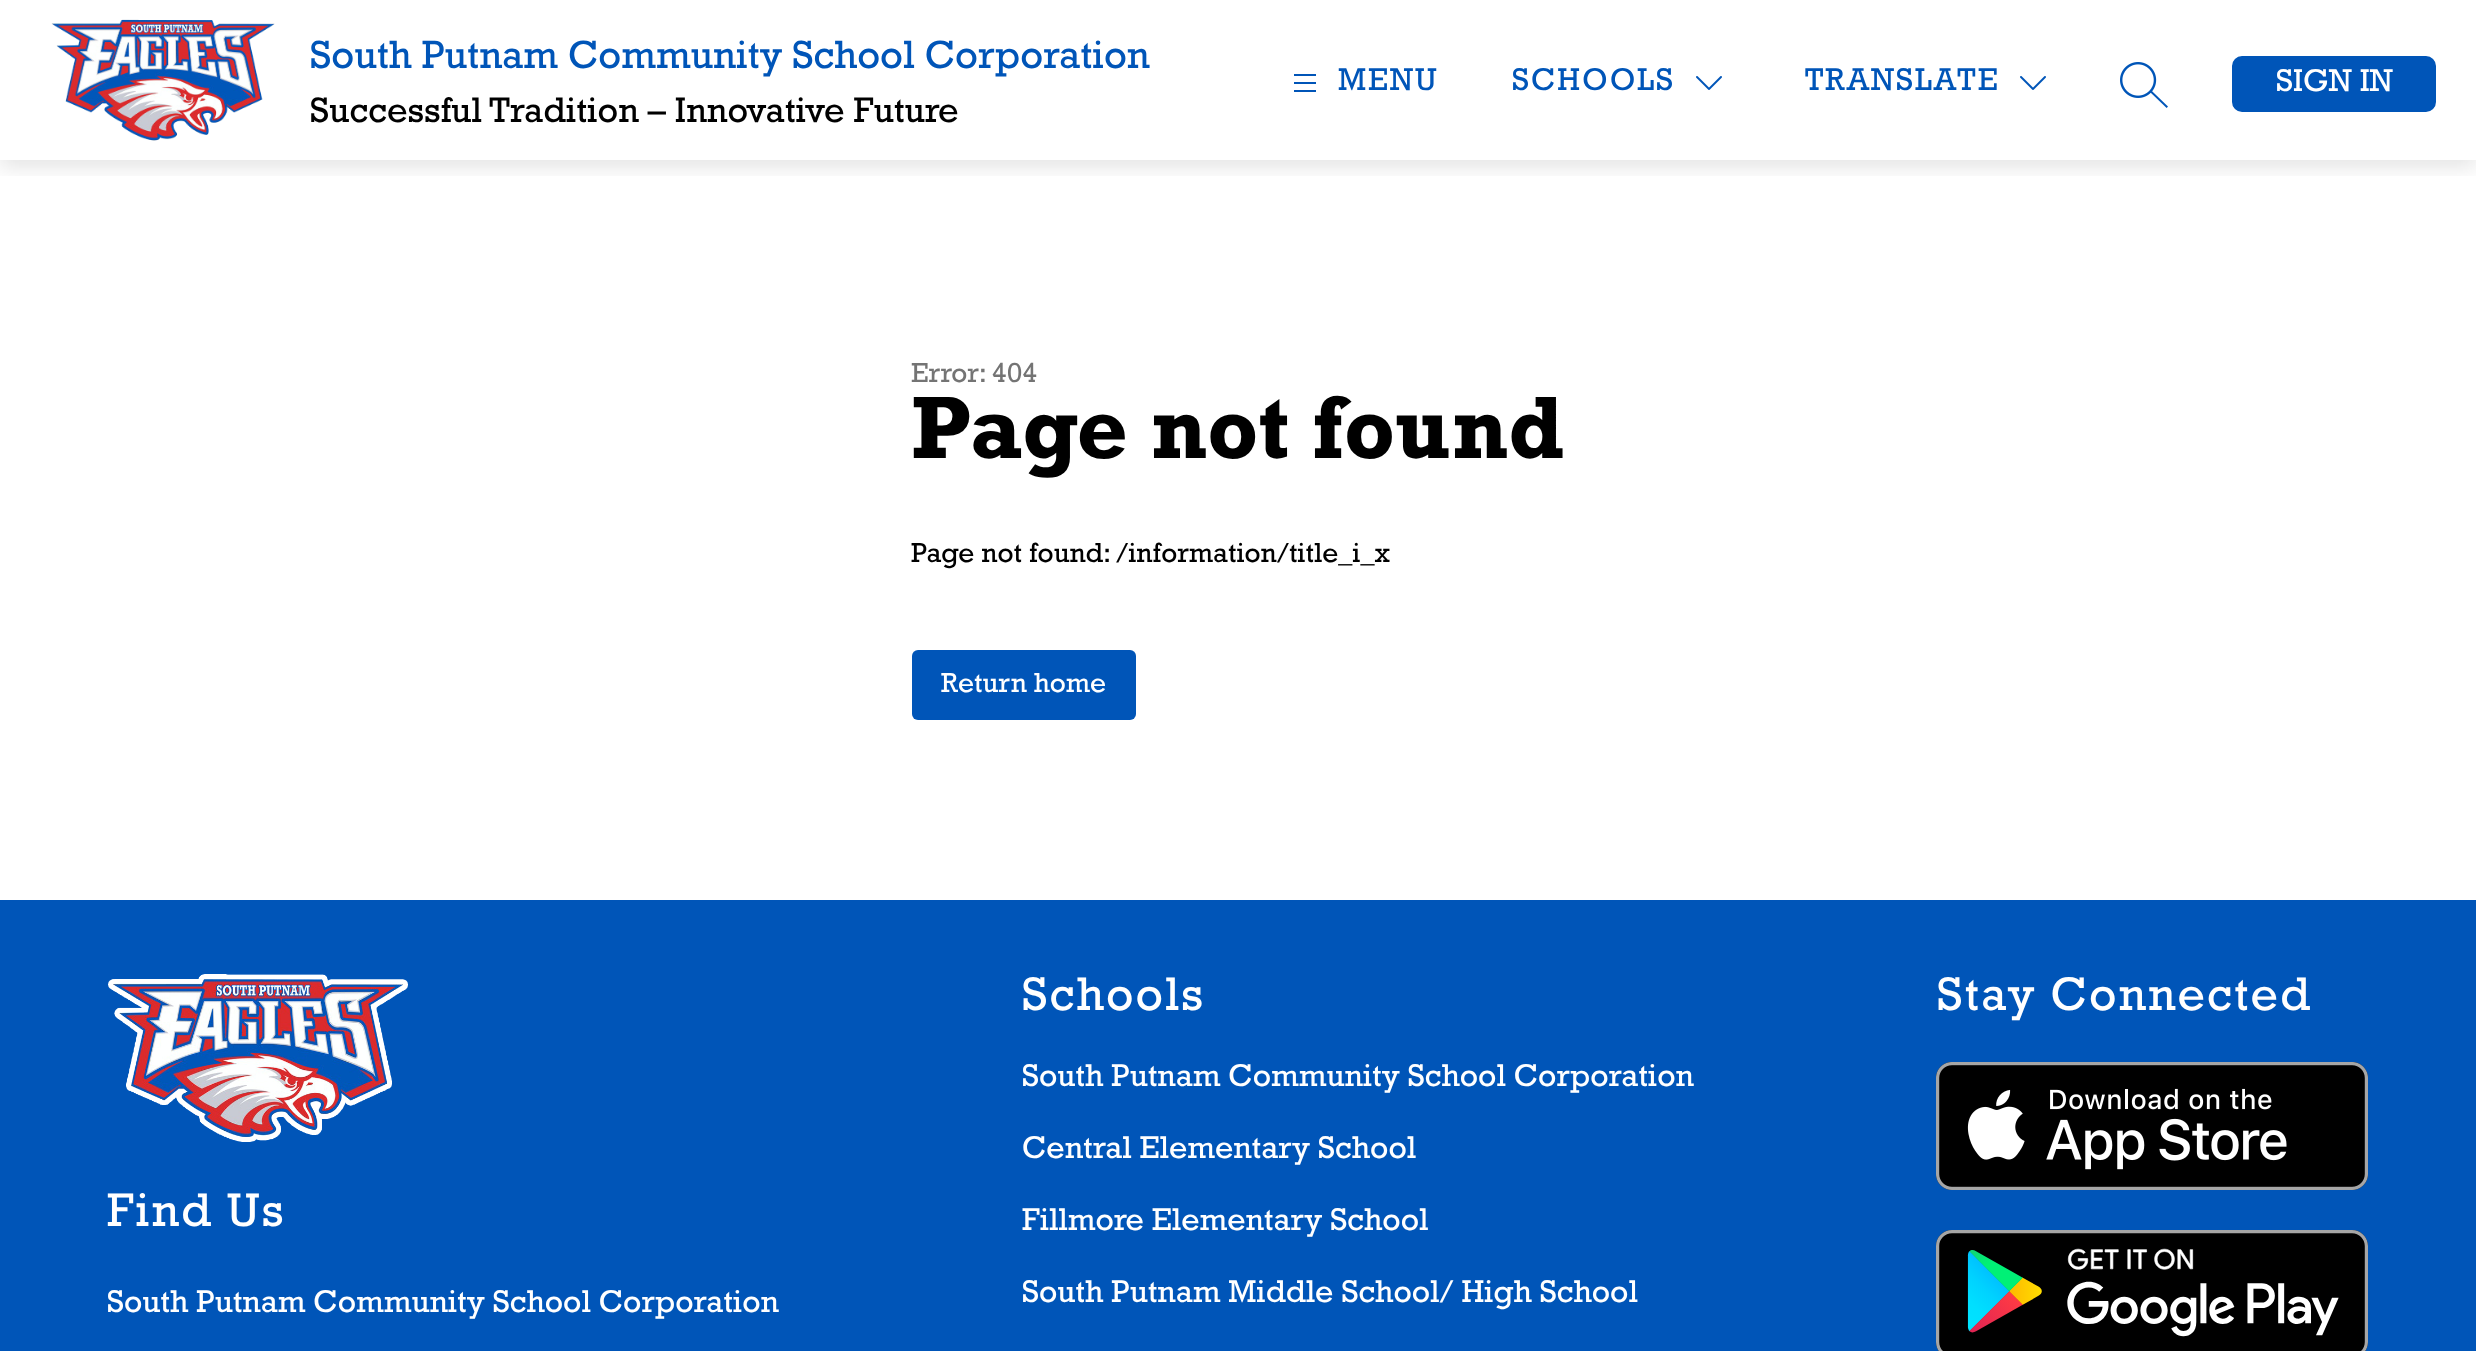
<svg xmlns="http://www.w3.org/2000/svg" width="2476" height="1351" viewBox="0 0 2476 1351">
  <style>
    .t1 { font: 40px Rockwell; fill: #0055b8; }
    .t2 { font: 36px Rockwell; fill: #000; }
    .t3 { font: 32px Rockwell; letter-spacing: 2px; fill: #0055b8; }
    .t4 { font: 32px Rockwell; fill: #fff; }
    .t5 { font: 28px Rockwell; fill: #747474; }
    .t6 { font: bold 90px Rockwell; fill: #000; }
    .t7 { font: 28px Rockwell; fill: #000; }
    .t8 { font: 28px Rockwell; fill: #fff; }
    .t9 { font: 48px Rockwell; letter-spacing: 2px; fill: #fff; }
  </style>
  <defs>
    <clipPath id="clip1"><rect x="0" y="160" width="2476" height="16"/></clipPath>
  </defs>
  <rect width="100%" height="100%" fill="#fff"/>
  <g clip-path="url(#clip1)">
    <rect x="0" y="8" width="2476" height="160" fill="#0000001a" filter="blur(10px)"/>
  </g>
  <image x="51" y="19" width="224" height="122" href="images/1.png"/>
  <text x="310" y="68" class="t1">South Putnam Community School Corporation</text>
  <text x="310" y="122" class="t2">Successful Tradition – Innovative Future</text>
  <image x="1294" y="74" width="22" height="18" href="images/2.png"/>
  <text x="1338" y="90" class="t3">MENU</text>
  <text x="1512" y="90" class="t3">SCHOOLS</text>
  <image x="1696" y="76" width="26" height="14" href="images/3.png"/>
  <text x="1805" y="90" class="t3">TRANSLATE</text>
  <image x="2020" y="76" width="26" height="14" href="images/3.png"/>
  <image x="2120" y="62" width="48" height="46" href="images/4.png"/>
  <rect x="2233" y="57" width="202" height="54" rx="9" fill="#0055b8" stroke="#0055b8" stroke-width="2"/>
  <text x="2276" y="91" class="t4">SIGN IN</text>
  <text x="911" y="382" class="t5">Error: 404</text>
  <text x="911" y="458" class="t6">Page not found</text>
  <text x="911" y="562" class="t7">Page not found: /information/title_i_x</text>
  <rect x="912" y="650" width="224" height="70" rx="6" fill="#0055b8"/>
  <text x="941" y="692" class="t8">Return home</text>
  <rect x="0" y="900" width="2476" height="451" fill="#0055b8"/>
  <text x="1022" y="1010" class="t9">Schools</text>
  <text x="1022" y="1086" class="t4">South Putnam Community School Corporation</text>
  <text x="1022" y="1158" class="t4">Central Elementary School</text>
  <text x="1022" y="1230" class="t4">Fillmore Elementary School</text>
  <text x="1022" y="1302" class="t4">South Putnam Middle School/ High School</text>
  <text x="1937" y="1010" class="t9">Stay Connected</text>
  <image x="1936" y="1062" width="432" height="128" href="images/5.png"/>
  <image x="1936" y="1230" width="432" height="121" href="images/6.png"/>
  <image x="108" y="974" width="300" height="168" href="images/7.png"/>
  <text x="107" y="1226" class="t9">Find Us</text>
  <text x="107" y="1312" class="t4">South Putnam Community School Corporation</text>
</svg>
